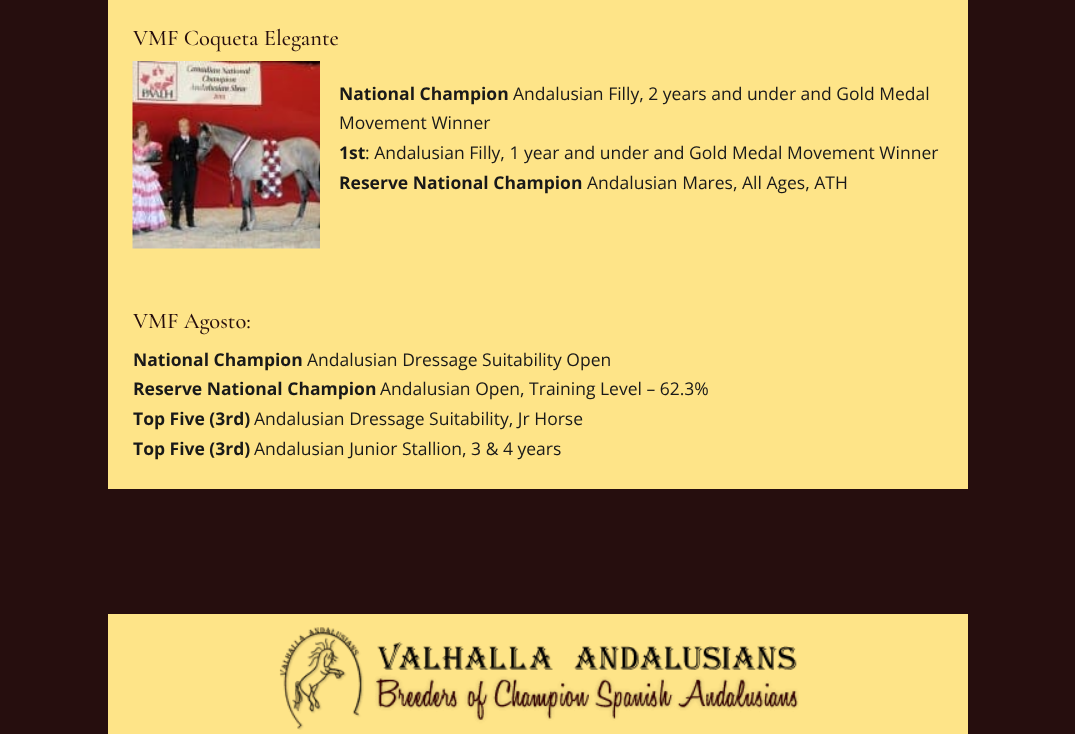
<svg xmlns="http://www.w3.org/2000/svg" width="1075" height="734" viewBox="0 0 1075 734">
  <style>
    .t1 { font: 500 22.5px Cormorant Garamond; fill: #260e0e; }
    .t2 { font: bold 17.5px Open Sans; fill: #191919; }
    .t3 { font: 17.5px Open Sans; fill: #191919; }
  </style>
  <rect width="100%" height="100%" fill="#260e0e"/>
  <rect x="108" y="0" width="860" height="489" fill="#fee488"/>
  <text x="133" y="45" class="t1">VMF Coqueta Elegante</text>
  <image x="132" y="61" width="188" height="188" href="images/1.png"/>
  <text x="339" y="100" class="t2">National Champion</text>
  <text x="513" y="100" class="t3">Andalusian Filly, 2 years and under and Gold Medal</text>
  <text x="339" y="129" class="t3">Movement Winner</text>
  <text x="339" y="159" class="t2">1st</text>
  <text x="365" y="159" class="t3">: Andalusian Filly, 1 year and under and Gold Medal Movement Winner</text>
  <text x="339" y="189" class="t2">Reserve National Champion</text>
  <text x="587" y="189" class="t3">Andalusian Mares, All Ages, ATH</text>
  <text x="133" y="328" class="t1">VMF Agosto:</text>
  <text x="133" y="366" class="t2">National Champion</text>
  <text x="307" y="366" class="t3">Andalusian Dressage Suitability Open</text>
  <text x="133" y="395" class="t2">Reserve National Champion</text>
  <text x="380" y="395" class="t3">Andalusian Open, Training Level – 62.3%</text>
  <text x="133" y="425" class="t2">Top Five (3rd)</text>
  <text x="254" y="425" class="t3">Andalusian Dressage Suitability, Jr Horse</text>
  <text x="133" y="455" class="t2">Top Five (3rd)</text>
  <text x="254" y="455" class="t3">Andalusian Junior Stallion, 3 &amp; 4 years</text>
  <rect x="108" y="614" width="860" height="120" fill="#fee488"/>
  <image x="279" y="627" width="520" height="103" href="images/2.png"/>
</svg>
